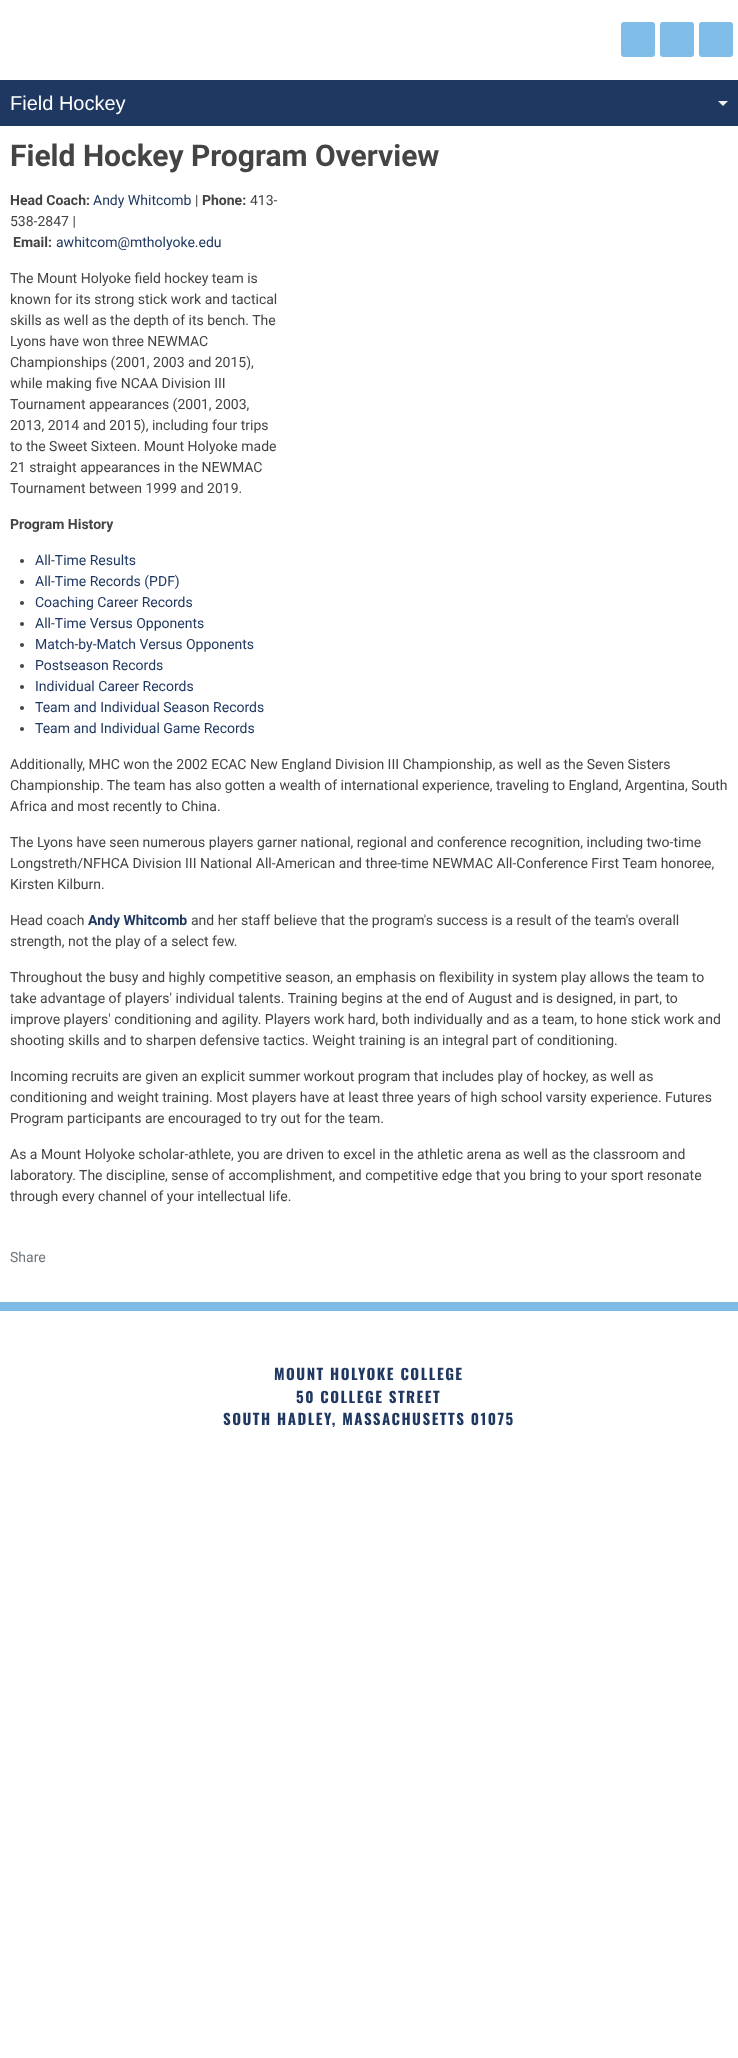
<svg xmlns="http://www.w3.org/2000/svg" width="738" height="2058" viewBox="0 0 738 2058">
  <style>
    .t1 { font: 20px Liberation Sans; fill: #fff; }
    .t2 { font: bold 30px Roboto; fill: #444; }
    .t3 { font: bold 14px Roboto; fill: #444; }
    .t4 { font: 14px Roboto; fill: #203861; }
    .t5 { font: 14px Roboto; fill: #444; }
    .t6 { font: bold 14px Roboto; fill: #203861; }
    .t7 { font: 14px Roboto; fill: #6c757d; }
    .t8 { font: bold 15px Oswald; letter-spacing: 1.5px; fill: #203861; }
  </style>
  <rect width="100%" height="100%" fill="#fff"/>
  <rect x="621" y="22" width="34" height="35" rx="3" fill="#7fbde8"/>
  <rect x="660" y="22" width="34" height="35" rx="3" fill="#7fbde8"/>
  <rect x="699" y="22" width="34" height="35" rx="3" fill="#7fbde8"/>
  <rect x="0" y="80" width="738" height="46" fill="#1f3861"/>
  <text x="10" y="110" class="t1">Field Hockey</text>
  <path d="M718 101H728L723 106Z" fill="#eee"/>
  <text x="10" y="166" class="t2">Field Hockey Program Overview</text>
  <text x="10" y="205" class="t3">Head Coach:</text>
  <text x="93" y="205" class="t4">Andy Whitcomb</text>
  <text x="195" y="205" class="t5">|</text>
  <text x="202" y="205" class="t3">Phone:</text>
  <text x="250" y="205" class="t5">413-</text>
  <text x="10" y="226" class="t5">538-2847 |</text>
  <text x="13" y="247" class="t3">Email:</text>
  <text x="56" y="247" class="t4">awhitcom@mtholyoke.edu</text>
  <text x="10" y="283" class="t5">The Mount Holyoke field hockey team is</text>
  <text x="10" y="304" class="t5">known for its strong stick work and tactical</text>
  <text x="10" y="325" class="t5">skills as well as the depth of its bench. The</text>
  <text x="10" y="346" class="t5">Lyons have won three NEWMAC</text>
  <text x="10" y="367" class="t5">Championships (2001, 2003 and 2015),</text>
  <text x="10" y="388" class="t5">while making five NCAA Division III</text>
  <text x="10" y="409" class="t5">Tournament appearances (2001, 2003,</text>
  <text x="10" y="430" class="t5">2013, 2014 and 2015), including four trips</text>
  <text x="10" y="451" class="t5">to the Sweet Sixteen. Mount Holyoke made</text>
  <text x="10" y="472" class="t5">21 straight appearances in the NEWMAC</text>
  <text x="10" y="493" class="t5">Tournament between 1999 and 2019.</text>
  <text x="10" y="529" class="t3">Program History</text>
  <circle cx="22" cy="561" r="2" fill="#444"/>
  <text x="35" y="565" class="t4">All-Time Results</text>
  <circle cx="22" cy="582" r="2" fill="#444"/>
  <text x="35" y="586" class="t4">All-Time Records (PDF)</text>
  <circle cx="22" cy="603" r="2" fill="#444"/>
  <text x="35" y="607" class="t4">Coaching Career Records</text>
  <circle cx="22" cy="624" r="2" fill="#444"/>
  <text x="35" y="628" class="t4">All-Time Versus Opponents</text>
  <circle cx="22" cy="645" r="2" fill="#444"/>
  <text x="35" y="649" class="t4">Match-by-Match Versus Opponents</text>
  <circle cx="22" cy="666" r="2" fill="#444"/>
  <text x="35" y="670" class="t4">Postseason Records</text>
  <circle cx="22" cy="687" r="2" fill="#444"/>
  <text x="35" y="691" class="t4">Individual Career Records</text>
  <circle cx="22" cy="708" r="2" fill="#444"/>
  <text x="35" y="712" class="t4">Team and Individual Season Records</text>
  <circle cx="22" cy="729" r="2" fill="#444"/>
  <text x="35" y="733" class="t4">Team and Individual Game Records</text>
  <text x="10" y="769" class="t5">Additionally, MHC won the 2002 ECAC New England Division III Championship, as well as the Seven Sisters</text>
  <text x="10" y="790" class="t5">Championship. The team has also gotten a wealth of international experience, traveling to England, Argentina, South</text>
  <text x="10" y="811" class="t5">Africa and most recently to China.</text>
  <text x="10" y="847" class="t5">The Lyons have seen numerous players garner national, regional and conference recognition, including two-time</text>
  <text x="10" y="868" class="t5">Longstreth/NFHCA Division III National All-American and three-time NEWMAC All-Conference First Team honoree,</text>
  <text x="10" y="889" class="t5">Kirsten Kilburn.</text>
  <text x="10" y="925" class="t5">Head coach</text>
  <text x="88" y="925" class="t6">Andy Whitcomb</text>
  <text x="191" y="925" class="t5">and her staff believe that the program's success is a result of the team's overall</text>
  <text x="10" y="946" class="t5">strength, not the play of a select few.</text>
  <text x="10" y="982" class="t5">Throughout the busy and highly competitive season, an emphasis on flexibility in system play allows the team to</text>
  <text x="10" y="1003" class="t5">take advantage of players' individual talents. Training begins at the end of August and is designed, in part, to</text>
  <text x="10" y="1024" class="t5">improve players' conditioning and agility. Players work hard, both individually and as a team, to hone stick work and</text>
  <text x="10" y="1045" class="t5">shooting skills and to sharpen defensive tactics. Weight training is an integral part of conditioning.</text>
  <text x="10" y="1081" class="t5">Incoming recruits are given an explicit summer workout program that includes play of hockey, as well as</text>
  <text x="10" y="1102" class="t5">conditioning and weight training. Most players have at least three years of high school varsity experience. Futures</text>
  <text x="10" y="1123" class="t5">Program participants are encouraged to try out for the team.</text>
  <text x="10" y="1159" class="t5">As a Mount Holyoke scholar-athlete, you are driven to excel in the athletic arena as well as the classroom and</text>
  <text x="10" y="1180" class="t5">laboratory. The discipline, sense of accomplishment, and competitive edge that you bring to your sport resonate</text>
  <text x="10" y="1201" class="t5">through every channel of your intellectual life.</text>
  <text x="10" y="1262" class="t7">Share</text>
  <rect x="0" y="1302" width="738" height="9" fill="#7fbce5"/>
  <text x="274" y="1380" class="t8">MOUNT HOLYOKE COLLEGE</text>
  <text x="296" y="1403" class="t8">50 COLLEGE STREET</text>
  <text x="223" y="1425" class="t8">SOUTH HADLEY, MASSACHUSETTS 01075</text>
</svg>
